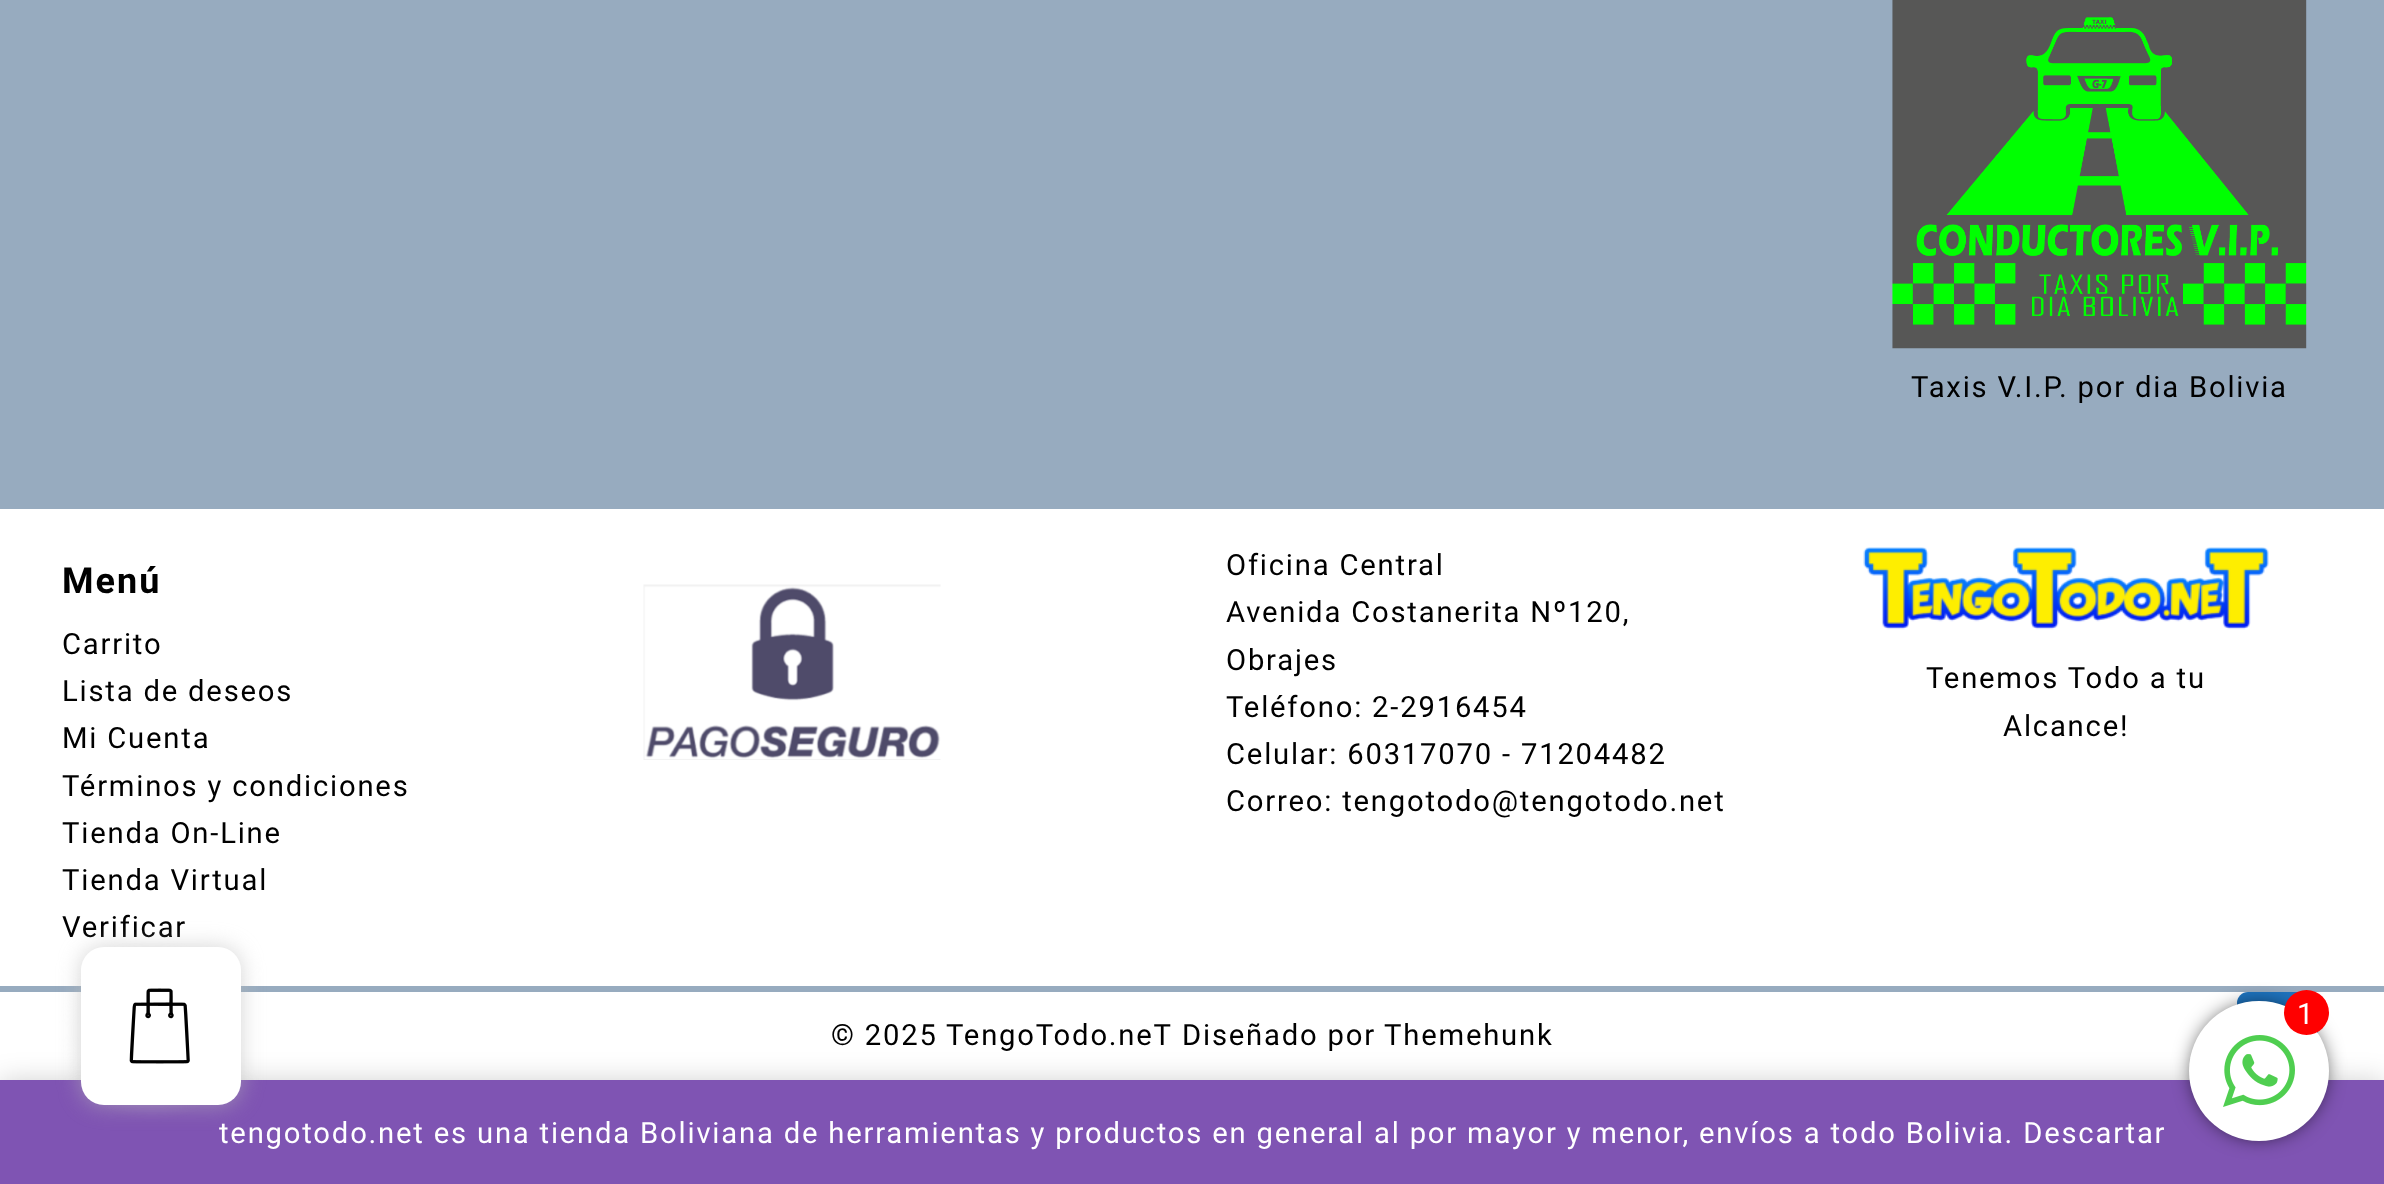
<svg xmlns="http://www.w3.org/2000/svg" width="2384" height="1184" viewBox="0 0 2384 1184">
  <style>
    .t1 { font: 29.25px Roboto; letter-spacing: 1.8px; fill: #000; }
    .t2 { font: bold 36px Roboto; letter-spacing: 2px; fill: #000; }
    .t3 { font: 29.25px Roboto; letter-spacing: 1.8px; fill: #fff; }
  </style>
  <rect width="100%" height="100%" fill="#97abbf"/>
  <image x="1892" y="0" width="415" height="349" href="images/1.png"/>
  <text x="1911" y="397" class="t1">Taxis V.I.P. por dia Bolivia</text>
  <rect x="0" y="509" width="2384" height="477" fill="#fff"/>
  <text x="62" y="593" class="t2">Menú</text>
  <text x="62" y="654" class="t1">Carrito</text>
  <text x="62" y="701" class="t1">Lista de deseos</text>
  <text x="62" y="748" class="t1">Mi Cuenta</text>
  <text x="62" y="796" class="t1">Términos y condiciones</text>
  <text x="62" y="843" class="t1">Tienda On-Line</text>
  <text x="62" y="890" class="t1">Tienda Virtual</text>
  <text x="62" y="937" class="t1">Verificar</text>
  <image x="643" y="584" width="298" height="176" href="images/2.png"/>
  <text x="1226" y="575" class="t1">Oficina Central</text>
  <text x="1226" y="622" class="t1">Avenida Costanerita Nº120,</text>
  <text x="1226" y="670" class="t1">Obrajes</text>
  <text x="1226" y="717" class="t1">Teléfono: 2-2916454</text>
  <text x="1226" y="764" class="t1">Celular: 60317070 - 71204482</text>
  <text x="1226" y="811" class="t1">Correo: tengotodo@tengotodo.net</text>
  <image x="1863" y="547" width="406" height="83" href="images/3.png"/>
  <text x="1926" y="688" class="t1">Tenemos Todo a tu</text>
  <text x="2003" y="736" class="t1">Alcance!</text>
  <rect x="0" y="992" width="2384" height="88" fill="#fff"/>
  <text x="831" y="1045" class="t1">© 2025</text>
  <text x="946" y="1045" class="t1">TengoTodo.neT</text>
  <text x="1182" y="1045" class="t1">Diseñado por</text>
  <text x="1384" y="1045" class="t1">Themehunk</text>
  <rect x="2237" y="992" width="81" height="81" rx="11" fill="#1e73be"/>
  <rect x="0" y="1082" width="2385" height="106" fill="#00000033" filter="blur(14.5px)"/>
  <rect x="0" y="1080" width="2384" height="104" fill="#7f54b3"/>
  <rect x="72" y="952" width="160" height="157" rx="78.5" fill="#dddddd1a" filter="blur(7px)"/>
  <rect x="81" y="947" width="160" height="158" rx="23" fill="#b7b7b799" filter="blur(11px)"/>
  <rect x="81" y="947" width="160" height="158" rx="23" fill="#fff"/>
  <image x="129" y="988" width="61" height="76" href="images/4.png"/>
  <rect x="2196" y="1008" width="126" height="126" rx="63" fill="#000" filter="blur(11px)"/>
  <circle cx="2259" cy="1071" r="70" fill="#fff"/>
  <circle cx="2306.5" cy="1012.5" r="22.5" fill="#f00"/>
  <text x="2297" y="1024" class="t3">1</text>
  <image x="2223" y="1035" width="72" height="72" href="images/5.png"/>
  <text x="219" y="1143" class="t3">tengotodo.net es una tienda Boliviana de herramientas y productos en general al por mayor y menor, envíos a todo Bolivia. Descartar</text>
</svg>
